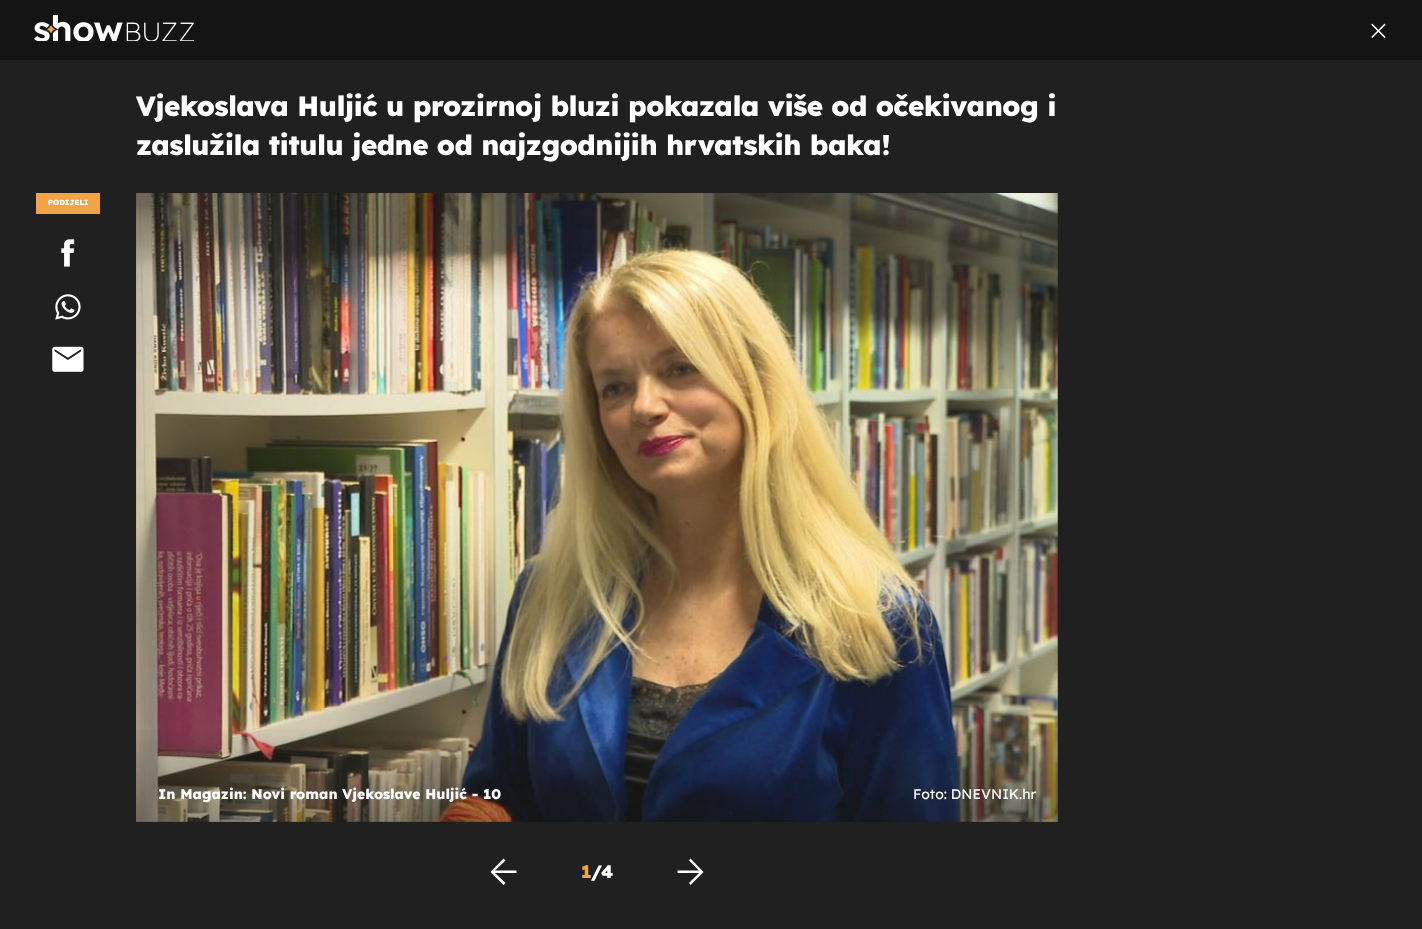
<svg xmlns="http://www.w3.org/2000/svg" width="1422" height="929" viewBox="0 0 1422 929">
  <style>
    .t1 { font: 800 27.85px Lexend; letter-spacing: -0.55px; fill: #fff; }
    .t2 { font: 800 7.5px Lexend; fill: #fff; }
    .t3 { font: 800 14px Lexend; fill: #fff; }
    .t4 { font: 14px Lexend; fill: #fff; }
    .t5 { font: 800 18px Lexend; fill: #f2a444; }
    .t6 { font: 800 18px Lexend; fill: #fff; }
  </style>
  <defs>
    <linearGradient id="g1" gradientUnits="userSpaceOnUse" x1="597" y1="822" x2="597" y2="724"><stop offset="0" stop-color="#141414" stop-opacity="0.4"/><stop offset="1" stop-color="#141414" stop-opacity="0"/></linearGradient>
  </defs>
  <rect width="100%" height="100%" fill="#202020"/>
  <rect x="0" y="0" width="1422" height="60" fill="#141414"/>
  <image x="34" y="15" width="160" height="26" href="images/1.png"/>
  <image x="1371" y="23" width="15" height="15" href="images/2.png"/>
  <text x="136" y="116" class="t1">Vjekoslava Huljić u prozirnoj bluzi pokazala više od očekivanog i</text>
  <text x="136" y="155" class="t1">zaslužila titulu jedne od najzgodnijih hrvatskih baka!</text>
  <rect x="36" y="193" width="64" height="21" fill="#f2a444"/>
  <text x="48" y="205" class="t2">PODIJELI</text>
  <image x="61" y="239" width="14" height="28" href="images/3.png"/>
  <image x="55" y="294" width="26" height="26" href="images/4.png"/>
  <image x="52" y="346" width="32" height="26" href="images/5.png"/>
  <image x="136" y="193" width="922" height="629" href="images/6.png"/>
  <rect x="136" y="729" width="922" height="93" fill="url(#g1)"/>
  <text x="158" y="799" class="t3">In Magazin: Novi roman Vjekoslave Huljić - 10</text>
  <text x="913" y="799" class="t4">Foto: DNEVNIK.hr</text>
  <path d="M503.5 885L505.5 883L495 873H516.5V870.5H495L505.5 860.5L503.5 858.5L490.5 872Z" fill="#fff"/>
  <text x="581" y="878" class="t5">1</text>
  <text x="591" y="878" class="t6">/</text>
  <text x="601" y="878" class="t6">4</text>
  <path d="M690.5 885L689 883L699 873H677.5V870.5H699L689 860.5L690.5 858.5L703.5 872Z" fill="#fff"/>
</svg>
